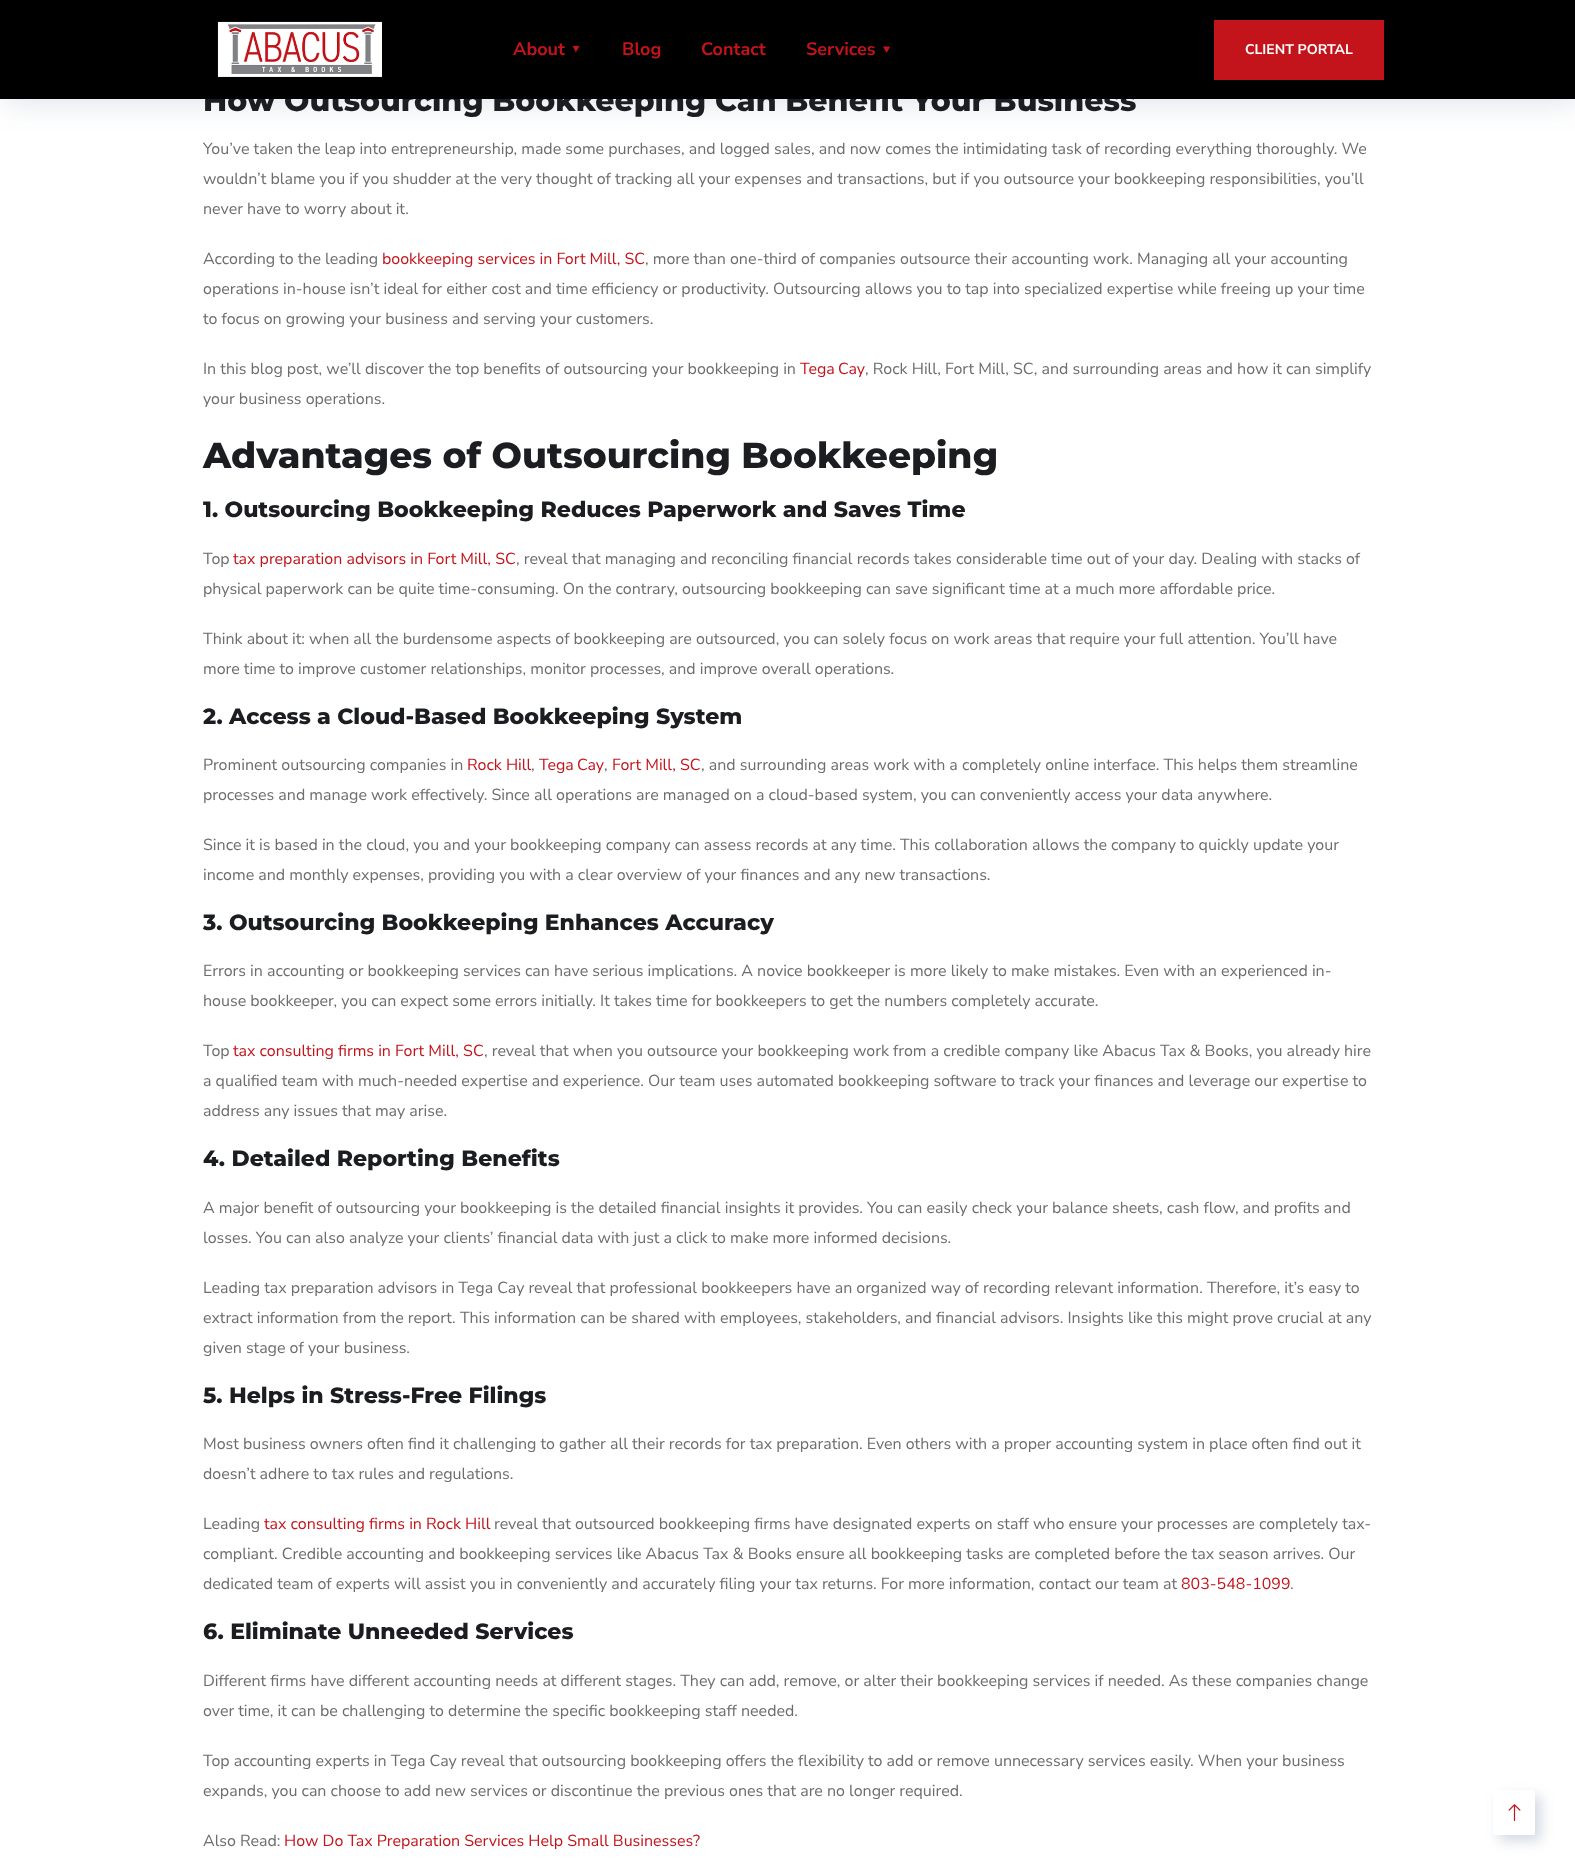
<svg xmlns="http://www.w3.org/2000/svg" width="1575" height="1875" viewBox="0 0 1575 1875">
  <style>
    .t1 { font: 800 30px Montserrat; fill: #1b1d21; }
    .t2 { font: bold 18px Nunito Sans; fill: #c3141b; }
    .t3 { font: bold 14px Nunito Sans; fill: #fff; }
    .t4 { font: 16px Nunito Sans; fill: #6d6d6d; }
    .t5 { font: 16px Nunito Sans; fill: #c3141b; }
    .t6 { font: 800 36px Montserrat; fill: #1b1d21; }
    .t7 { font: 800 22px Montserrat; fill: #1b1d21; }
  </style>
  <defs>
    <clipPath id="clip1"><rect x="203" y="134" width="1170" height="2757"/></clipPath>
  </defs>
  <rect width="100%" height="100%" fill="#fff"/>
  <rect x="4" y="4" width="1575" height="99" fill="#2a437126" filter="blur(15px)"/>
  <text x="203" y="111" class="t1">How Outsourcing Bookkeeping Can Benefit Your Business</text>
  <rect x="0" y="0" width="1575" height="99" fill="#000"/>
  <image x="217" y="21" width="165" height="56" href="images/1.png"/>
  <text x="513" y="55" class="t2">About</text>
  <path d="M576 52V52.5L572.5 46H579.5Z" fill="#c3141b"/>
  <text x="622" y="55" class="t2">Blog</text>
  <text x="701" y="55" class="t2">Contact</text>
  <text x="806" y="55" class="t2">Services</text>
  <path d="M887 52.5H886.5L883 46.5H890Z" fill="#c3141b"/>
  <rect x="1214" y="20" width="170" height="60" fill="#c3141b"/>
  <text x="1245" y="54" class="t3">CLIENT PORTAL</text>
  <text x="203" y="154" class="t4">You’ve taken the leap into entrepreneurship, made some purchases, and logged sales, and now comes the intimidating task of recording everything thoroughly. We</text>
  <text x="203" y="184" class="t4">wouldn’t blame you if you shudder at the very thought of tracking all your expenses and transactions, but if you outsource your bookkeeping responsibilities, you’ll</text>
  <text x="203" y="214" class="t4">never have to worry about it.</text>
  <text x="203" y="264" class="t4">According to the leading</text>
  <text x="382" y="264" class="t5">bookkeeping services in Fort Mill, SC</text>
  <text x="645" y="264" class="t4">, more than one-third of companies outsource their accounting work. Managing all your accounting</text>
  <text x="203" y="294" class="t4">operations in-house isn’t ideal for either cost and time efficiency or productivity. Outsourcing allows you to tap into specialized expertise while freeing up your time</text>
  <text x="203" y="324" class="t4">to focus on growing your business and serving your customers.</text>
  <text x="203" y="374" class="t4">In this blog post, we’ll discover the top benefits of outsourcing your bookkeeping in</text>
  <text x="800" y="374" word-spacing="-1" class="t5">Tega Cay</text>
  <text x="865" y="374" class="t4">, Rock Hill, Fort Mill, SC, and surrounding areas and how it can simplify</text>
  <text x="203" y="404" class="t4">your business operations.</text>
  <text x="203" y="468" class="t6">Advantages of Outsourcing Bookkeeping</text>
  <g clip-path="url(#clip1)">
    <text x="203" y="517" class="t7">1. Outsourcing Bookkeeping Reduces Paperwork and Saves Time</text>
  </g>
  <text x="203" y="564" class="t4">Top</text>
  <text x="233" y="564" class="t5">tax preparation advisors in Fort Mill, SC</text>
  <text x="516" y="564" class="t4">, reveal that managing and reconciling financial records takes considerable time out of your day. Dealing with stacks of</text>
  <text x="203" y="594" class="t4">physical paperwork can be quite time-consuming. On the contrary, outsourcing bookkeeping can save significant time at a much more affordable price.</text>
  <text x="203" y="644" class="t4">Think about it: when all the burdensome aspects of bookkeeping are outsourced, you can solely focus on work areas that require your full attention. You’ll have</text>
  <text x="203" y="674" class="t4">more time to improve customer relationships, monitor processes, and improve overall operations.</text>
  <text x="203" y="724" class="t7">2. Access a Cloud-Based Bookkeeping System</text>
  <text x="203" y="770" class="t4">Prominent outsourcing companies in</text>
  <text x="467" y="770" class="t5">Rock Hill</text>
  <text x="531" y="770" class="t4">,</text>
  <text x="539" y="770" word-spacing="-1" class="t5">Tega Cay</text>
  <text x="604" y="770" class="t4">,</text>
  <text x="612" y="770" class="t5">Fort Mill, SC</text>
  <text x="701" y="770" class="t4">, and surrounding areas work with a completely online interface. This helps them streamline</text>
  <text x="203" y="800" class="t4">processes and manage work effectively. Since all operations are managed on a cloud-based system, you can conveniently access your data anywhere.</text>
  <text x="203" y="850" class="t4">Since it is based in the cloud, you and your bookkeeping company can assess records at any time. This collaboration allows the company to quickly update your</text>
  <text x="203" y="880" class="t4">income and monthly expenses, providing you with a clear overview of your finances and any new transactions.</text>
  <text x="203" y="930" class="t7">3. Outsourcing Bookkeeping Enhances Accuracy</text>
  <text x="203" y="976" class="t4">Errors in accounting or bookkeeping services can have serious implications. A novice bookkeeper is more likely to make mistakes. Even with an experienced in-</text>
  <text x="203" y="1006" class="t4">house bookkeeper, you can expect some errors initially. It takes time for bookkeepers to get the numbers completely accurate.</text>
  <text x="203" y="1056" class="t4">Top</text>
  <text x="233" y="1056" class="t5">tax consulting firms in Fort Mill, SC</text>
  <text x="484" y="1056" class="t4">, reveal that when you outsource your bookkeeping work from a credible company like Abacus Tax &amp; Books, you already hire</text>
  <text x="203" y="1086" class="t4">a qualified team with much-needed expertise and experience. Our team uses automated bookkeeping software to track your finances and leverage our expertise to</text>
  <text x="203" y="1116" class="t4">address any issues that may arise.</text>
  <text x="203" y="1166" class="t7">4. Detailed Reporting Benefits</text>
  <text x="203" y="1213" class="t4">A major benefit of outsourcing your bookkeeping is the detailed financial insights it provides. You can easily check your balance sheets, cash flow, and profits and</text>
  <text x="203" y="1243" class="t4">losses. You can also analyze your clients’ financial data with just a click to make more informed decisions.</text>
  <text x="203" y="1293" class="t4">Leading tax preparation advisors in Tega Cay reveal that professional bookkeepers have an organized way of recording relevant information. Therefore, it’s easy to</text>
  <text x="203" y="1323" class="t4">extract information from the report. This information can be shared with employees, stakeholders, and financial advisors. Insights like this might prove crucial at any</text>
  <text x="203" y="1353" class="t4">given stage of your business.</text>
  <text x="203" y="1403" class="t7">5. Helps in Stress-Free Filings</text>
  <text x="203" y="1449" class="t4">Most business owners often find it challenging to gather all their records for tax preparation. Even others with a proper accounting system in place often find out it</text>
  <text x="203" y="1479" class="t4">doesn’t adhere to tax rules and regulations.</text>
  <text x="203" y="1529" class="t4">Leading</text>
  <text x="264" y="1529" class="t5">tax consulting firms in Rock Hill</text>
  <text x="494" y="1529" class="t4">reveal that outsourced bookkeeping firms have designated experts on staff who ensure your processes are completely tax-</text>
  <text x="203" y="1559" class="t4">compliant. Credible accounting and bookkeeping services like Abacus Tax &amp; Books ensure all bookkeeping tasks are completed before the tax season arrives. Our</text>
  <text x="203" y="1589" class="t4">dedicated team of experts will assist you in conveniently and accurately filing your tax returns. For more information, contact our team at</text>
  <text x="1181" y="1589" class="t5">803-548-1099</text>
  <text x="1290" y="1589" class="t4">.</text>
  <text x="203" y="1639" class="t7">6. Eliminate Unneeded Services</text>
  <text x="203" y="1686" class="t4">Different firms have different accounting needs at different stages. They can add, remove, or alter their bookkeeping services if needed. As these companies change</text>
  <text x="203" y="1716" class="t4">over time, it can be challenging to determine the specific bookkeeping staff needed.</text>
  <text x="203" y="1766" class="t4">Top accounting experts in Tega Cay reveal that outsourcing bookkeeping offers the flexibility to add or remove unnecessary services easily. When your business</text>
  <text x="203" y="1796" class="t4">expands, you can choose to add new services or discontinue the previous ones that are no longer required.</text>
  <text x="203" y="1846" class="t4">Also Read:</text>
  <text x="284" y="1846" class="t5">How Do Tax Preparation Services Help Small Businesses?</text>
  <rect x="1499" y="1796" width="42" height="45" rx="2" fill="#2a437133" filter="blur(6.5px)"/>
  <rect x="1493" y="1790" width="42" height="45" rx="2" fill="#fff"/>
  <image x="1508" y="1804" width="13" height="18" href="images/2.png"/>
</svg>
